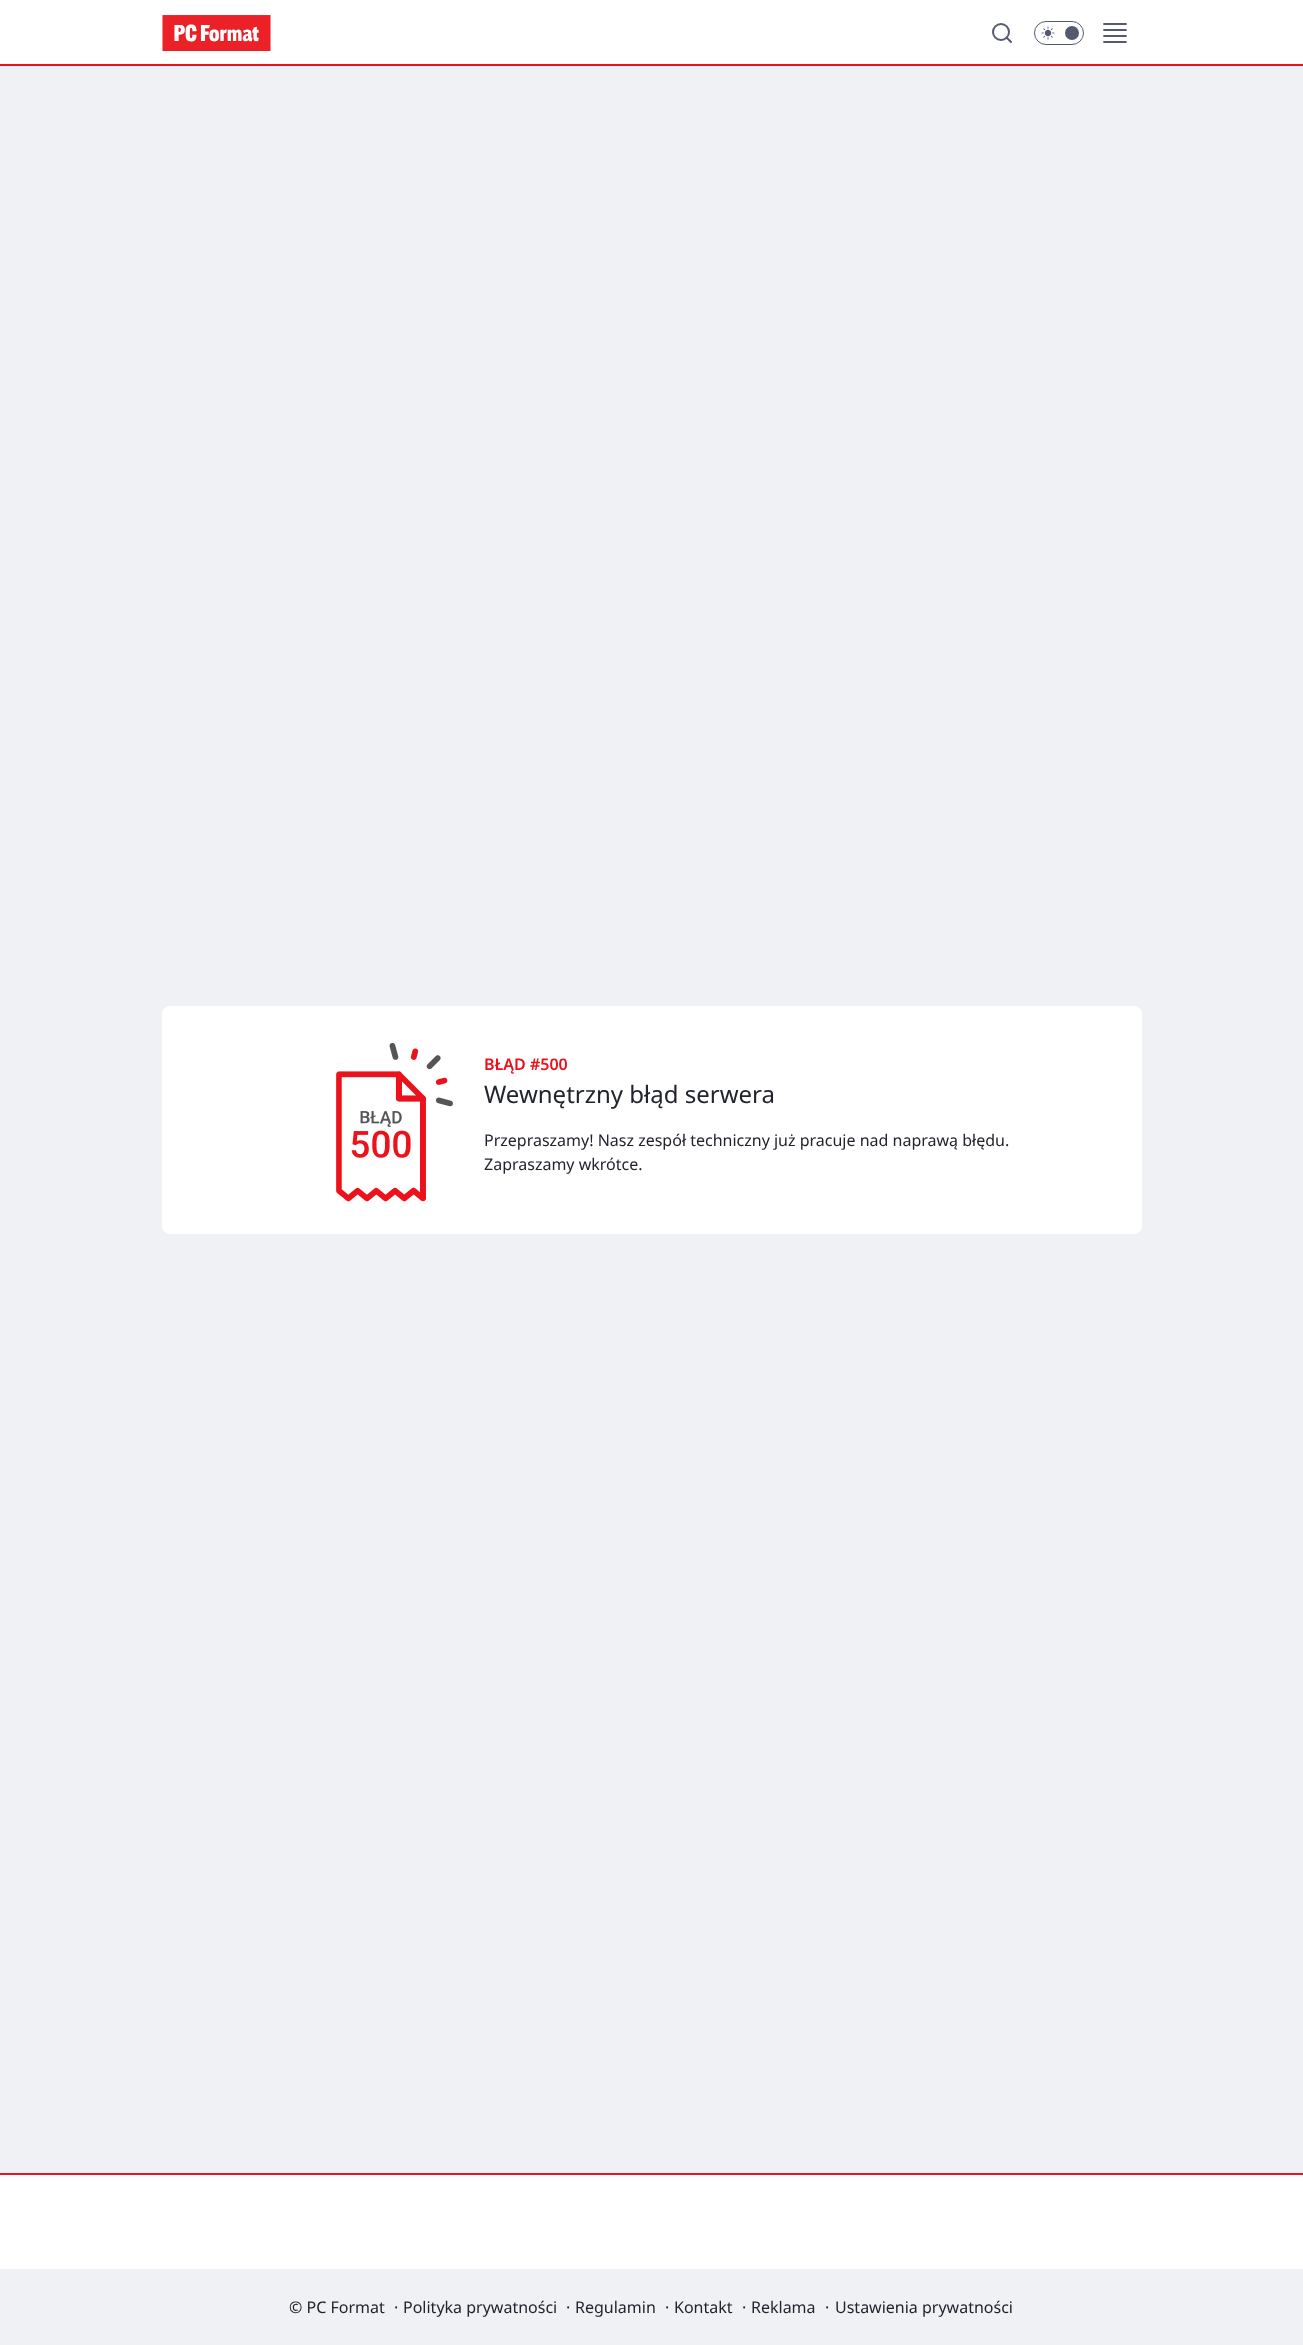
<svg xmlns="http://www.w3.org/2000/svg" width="1303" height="2345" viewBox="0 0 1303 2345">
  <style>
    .t1 { font: 600 16px Noto Sans; fill: #ec111a; }
    .t2 { font: 24px Noto Sans; fill: #22242d; }
    .t3 { font: 16px Noto Sans; fill: #22242d; }
  </style>
  <rect width="100%" height="100%" fill="#eff1f5"/>
  <rect x="0" y="0" width="1303" height="64" fill="#fff"/>
  <image x="162" y="15" width="109" height="36" href="images/1.png"/>
  <circle cx="1001" cy="32" r="8" fill="none" stroke="#555a72" stroke-width="2"/>
  <path d="M1011 42L1006.5 37.5" fill="none" stroke="#555a72" stroke-width="2" stroke-linecap="round" stroke-linejoin="round"/>
  <rect x="1034.5" y="21.5" width="49" height="23" rx="11.5" fill="none" stroke="#555a72"/>
  <image x="1041" y="26" width="14" height="14" href="images/2.png"/>
  <circle cx="1072" cy="33" r="7" fill="#555a72"/>
  <path d="M1104 36H1126M1104 30H1126M1104 24H1126M1104 42H1126" fill="none" stroke="#555a72" stroke-width="1.8" stroke-linecap="round" stroke-linejoin="round"/>
  <rect x="0" y="64" width="1303" height="2" fill="#ec111a"/>
  <rect x="162" y="1006" width="980" height="228" rx="8" fill="#fff"/>
  <image x="336" y="1042" width="117" height="160" href="images/3.png"/>
  <text x="484" y="1070" class="t1">BŁĄD #500</text>
  <text x="484" y="1103" class="t2">Wewnętrzny błąd serwera</text>
  <text x="484" y="1146" class="t3">Przepraszamy! Nasz zespół techniczny już pracuje nad naprawą błędu.</text>
  <text x="484" y="1170" class="t3">Zapraszamy wkrótce.</text>
  <rect x="0" y="2175" width="1303" height="94" fill="#fff"/>
  <rect x="0" y="2173" width="1303" height="2" fill="#ec111a"/>
  <text x="289" y="2313" class="t3">© PC Format</text>
  <text x="394" y="2313" class="t3">·</text>
  <text x="403" y="2313" class="t3">Polityka prywatności</text>
  <text x="566" y="2313" class="t3">·</text>
  <text x="575" y="2313" class="t3">Regulamin</text>
  <text x="665" y="2313" class="t3">·</text>
  <text x="674" y="2313" class="t3">Kontakt</text>
  <text x="742" y="2313" class="t3">·</text>
  <text x="751" y="2313" class="t3">Reklama</text>
  <text x="825" y="2313" class="t3">·</text>
  <text x="835" y="2313" class="t3">Ustawienia prywatności</text>
</svg>
